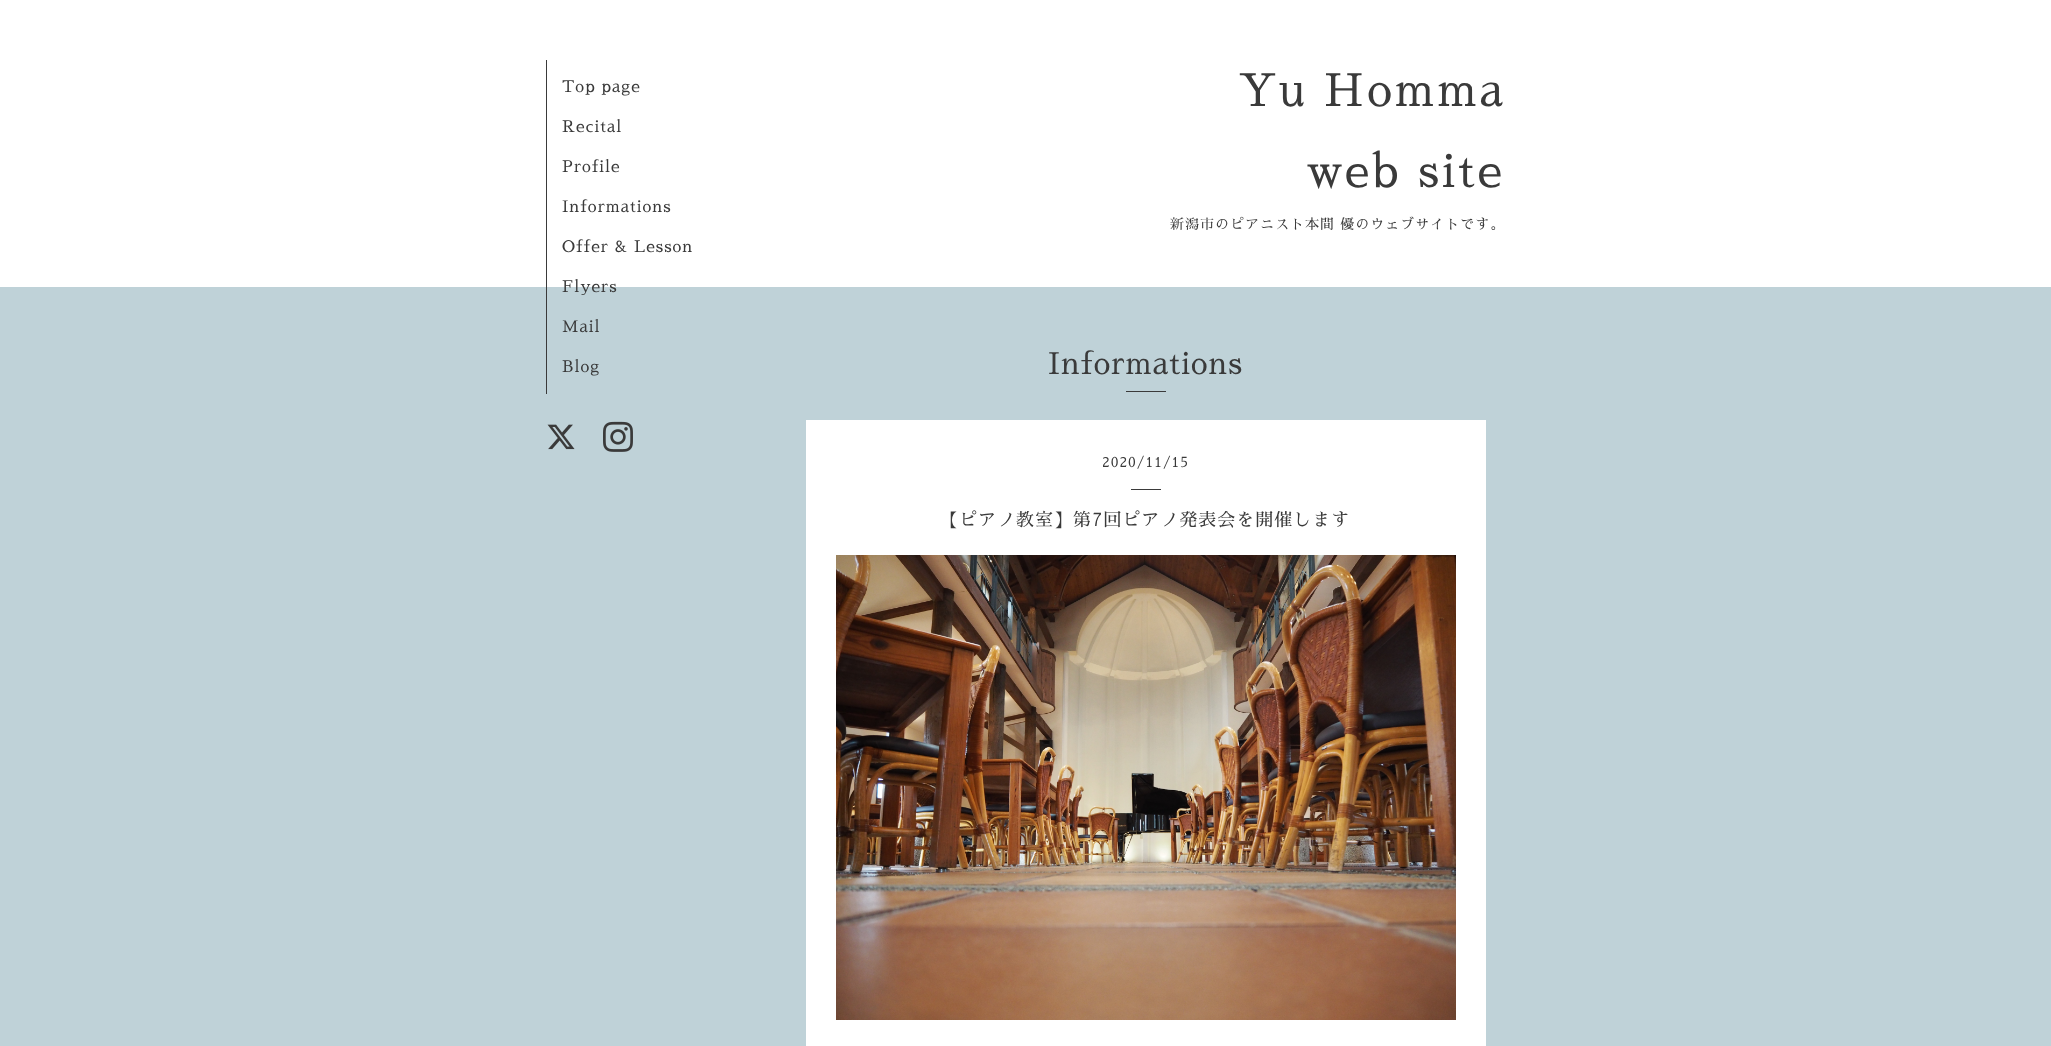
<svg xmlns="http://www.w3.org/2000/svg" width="2051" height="1046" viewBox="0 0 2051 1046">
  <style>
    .t1 { font: 16px Sawarabi Mincho; letter-spacing: 1px; fill: #3a3a3a; }
    .t2 { font: 45px Sawarabi Mincho; letter-spacing: 3px; fill: #3a3a3a; }
    .t3 { font: 14px Sawarabi Mincho; letter-spacing: 1px; fill: #3a3a3a; }
    .t4 { font: 30px Sawarabi Mincho; letter-spacing: 1px; fill: #3a3a3a; }
    .t5 { font: 18px Sawarabi Mincho; letter-spacing: 1px; fill: #3a3a3a; }
  </style>
  <rect width="100%" height="100%" fill="#fff"/>
  <rect x="0" y="287" width="2051" height="759" fill="#bfd2d8"/>
  <rect x="546" y="60" width="1" height="334" fill="#3a3a3a"/>
  <text x="562" y="92" class="t1">Top page</text>
  <text x="562" y="132" class="t1">Recital</text>
  <text x="562" y="172" class="t1">Profile</text>
  <text x="562" y="212" class="t1">Informations</text>
  <text x="562" y="252" class="t1">Offer &amp; Lesson</text>
  <text x="562" y="292" class="t1">Flyers</text>
  <text x="562" y="332" class="t1">Mail</text>
  <text x="562" y="372" class="t1">Blog</text>
  <image x="547" y="424" width="28" height="26" href="images/1.png"/>
  <image x="603" y="421" width="30" height="31" href="images/2.png"/>
  <text x="1238" y="106" class="t2">Yu Homma</text>
  <text x="1307" y="187" class="t2">web site</text>
  <text x="1170" y="229" class="t3">新潟市のピアニスト本間 優のウェブサイトです。</text>
  <text x="1048" y="374" class="t4">Informations</text>
  <rect x="1126" y="391" width="40" height="1" fill="#3a3a3a"/>
  <rect x="806" y="420" width="680" height="626" fill="#fff"/>
  <text x="1102" y="467" class="t3">2020/11/15</text>
  <rect x="1131" y="489" width="30" height="1" fill="#3a3a3a"/>
  <text x="940" y="526" class="t5">【ピアノ教室】第7回ピアノ発表会を開催します</text>
  <image x="836" y="555" width="620" height="465" href="images/3.png"/>
</svg>
